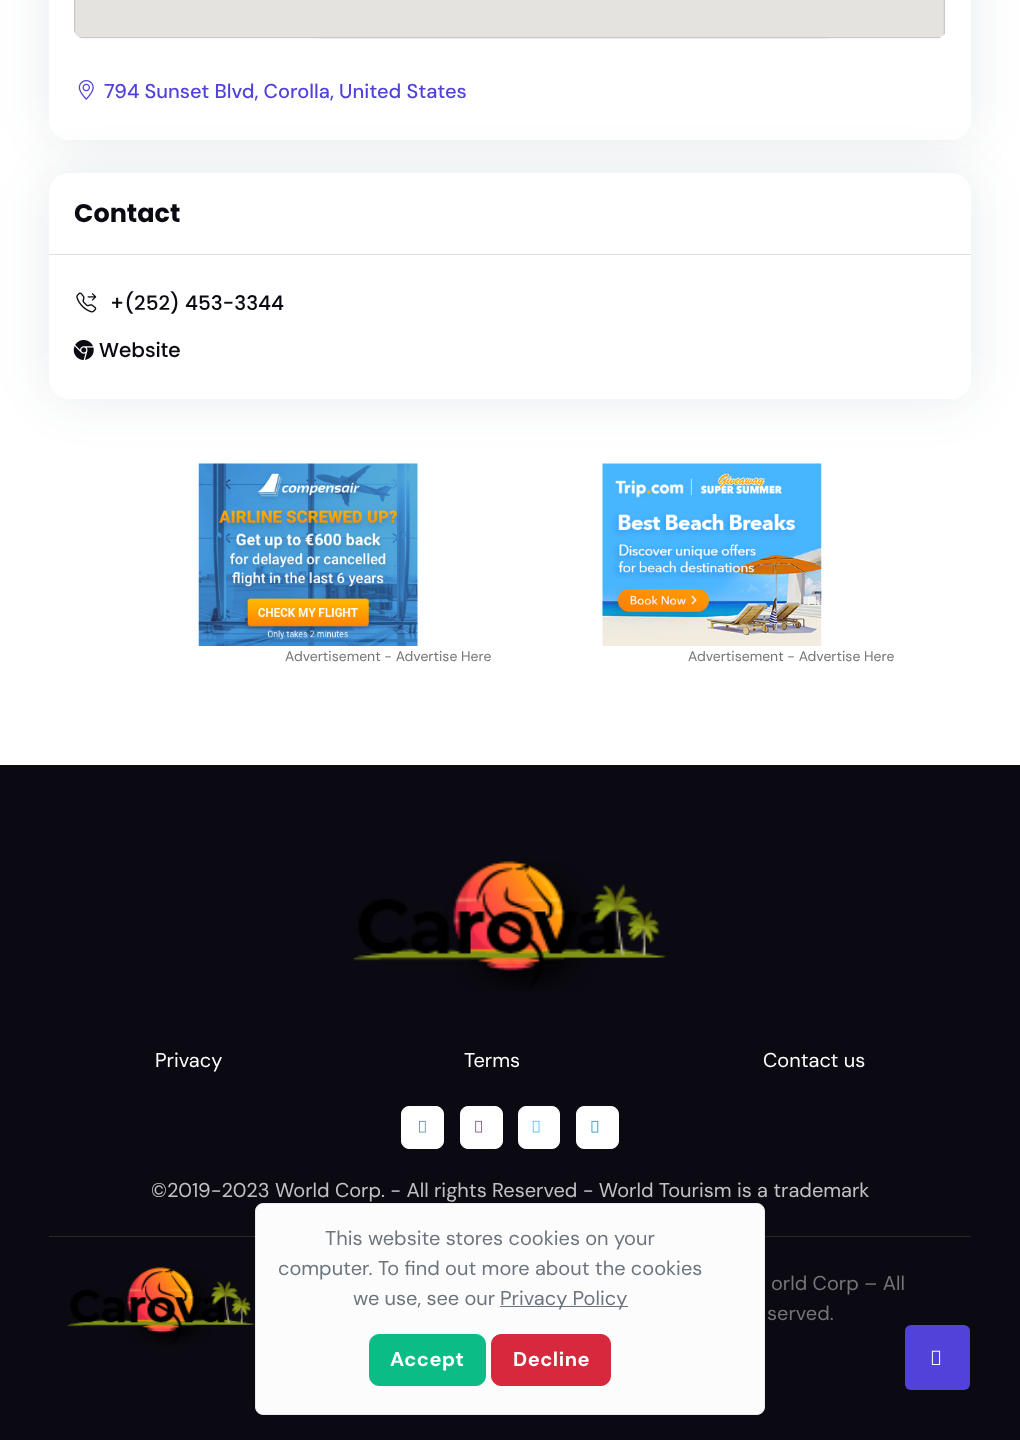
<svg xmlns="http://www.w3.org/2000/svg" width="1020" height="1440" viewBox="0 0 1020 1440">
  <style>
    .t1 { font: 500 20px DM Sans; fill: #5143d9; }
    .t2 { font: bold 25.5px Poppins; fill: #0b0a12; }
    .t3 { font: 500 20px Poppins; fill: #0b0a12; }
    .t4 { font: 14px DM Sans; fill: #747579; }
    .t5 { font: 20px DM Sans; fill: #fff; }
    .t6 { font: 20px DM Sans; fill: #c2c2c4; }
    .t7 { font: 20px DM Sans; fill: #747579; }
    .t8 { font: 20px DM Sans; fill: #6c757d; }
    .t9 { font: bold 20px DM Sans; letter-spacing: 0.5px; fill: #fff; }
  </style>
  <rect width="100%" height="100%" fill="#fff"/>
  <rect x="49" y="-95" width="922" height="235" rx="20" fill="#1d3a531a" filter="blur(25px)"/>
  <rect x="49" y="-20" width="922" height="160" rx="20" fill="#fff"/>
  <image x="74" y="0" width="871" height="39" href="images/1.png"/>
  <image x="78" y="80" width="16" height="20" href="images/2.png"/>
  <text x="104" y="98" class="t1">794 Sunset Blvd, Corolla, United States</text>
  <rect x="49" y="173" width="922" height="226" rx="20" fill="#1d3a531a" filter="blur(25px)"/>
  <rect x="49" y="173" width="922" height="226" rx="20" fill="#fff"/>
  <rect x="49" y="254" width="922" height="1" fill="#dfdfe3"/>
  <text x="74" y="222" class="t2">Contact</text>
  <image x="76" y="292" width="21" height="21" href="images/3.png"/>
  <text x="110" y="310" class="t3">+(252) 453-3344</text>
  <image x="73" y="340" width="21" height="20" href="images/4.png"/>
  <text x="99" y="357" class="t3">Website</text>
  <image x="198" y="463" width="220" height="183" href="images/5.png"/>
  <text x="285" y="661" class="t4">Advertisement - Advertise Here</text>
  <image x="602" y="463" width="220" height="183" href="images/6.png"/>
  <text x="688" y="661" class="t4">Advertisement - Advertise Here</text>
  <rect x="0" y="765" width="1020" height="675" fill="#0b0a12"/>
  <image x="353" y="861" width="313" height="130" href="images/7.png"/>
  <text x="155" y="1067" class="t5">Privacy</text>
  <text x="464" y="1067" class="t5">Terms</text>
  <text x="763" y="1067" class="t5">Contact us</text>
  <rect x="401.5" y="1106.5" width="42" height="42" rx="7.5" fill="#fff" stroke="#fff"/>
  <image x="419" y="1120" width="7" height="13" href="images/8.png"/>
  <rect x="460.5" y="1106.5" width="42" height="42" rx="7.5" fill="#fff" stroke="#fff"/>
  <image x="475" y="1120" width="7" height="13" href="images/9.png"/>
  <rect x="518.5" y="1106.5" width="41" height="42" rx="7.5" fill="#fff" stroke="#fff"/>
  <image x="532" y="1120" width="8" height="13" href="images/10.png"/>
  <rect x="576.5" y="1106.5" width="42" height="42" rx="7.5" fill="#fff" stroke="#fff"/>
  <image x="591" y="1120" width="8" height="13" href="images/11.png"/>
  <text x="151" y="1197" class="t6">©2019-2023 World Corp. - All rights Reserved - World Tourism is a trademark</text>
  <rect x="49" y="1236" width="922" height="1" fill="#2a2930"/>
  <image x="67" y="1267" width="188" height="78" href="images/12.png"/>
  <text x="771" y="1290" class="t7">orld Corp – All</text>
  <text x="767" y="1320" class="t7">served.</text>
  <rect x="255.5" y="1203.5" width="509" height="211" rx="7.5" fill="#fcfcfd" stroke="#e9ecef"/>
  <text x="325" y="1245" class="t8">This website stores cookies on your</text>
  <text x="278" y="1275" class="t8">computer. To find out more about the cookies</text>
  <text x="353" y="1305" class="t8">we use, see our</text>
  <rect x="500" y="1306" width="128" height="1" fill="#6c757d"/>
  <text x="500" y="1305" class="t8">Privacy Policy</text>
  <rect x="369.5" y="1334.5" width="116" height="51" rx="9.5" fill="#0cbc87" stroke="#0cbc87"/>
  <text x="390" y="1366" class="t9">Accept</text>
  <rect x="491.5" y="1334.5" width="119" height="51" rx="9.5" fill="#d6293e" stroke="#d6293e"/>
  <text x="513" y="1366" class="t9">Decline</text>
  <rect x="905" y="1325" width="65" height="65" rx="6" fill="#5143d9"/>
  <image x="931" y="1350" width="10" height="15" href="images/13.png"/>
</svg>
